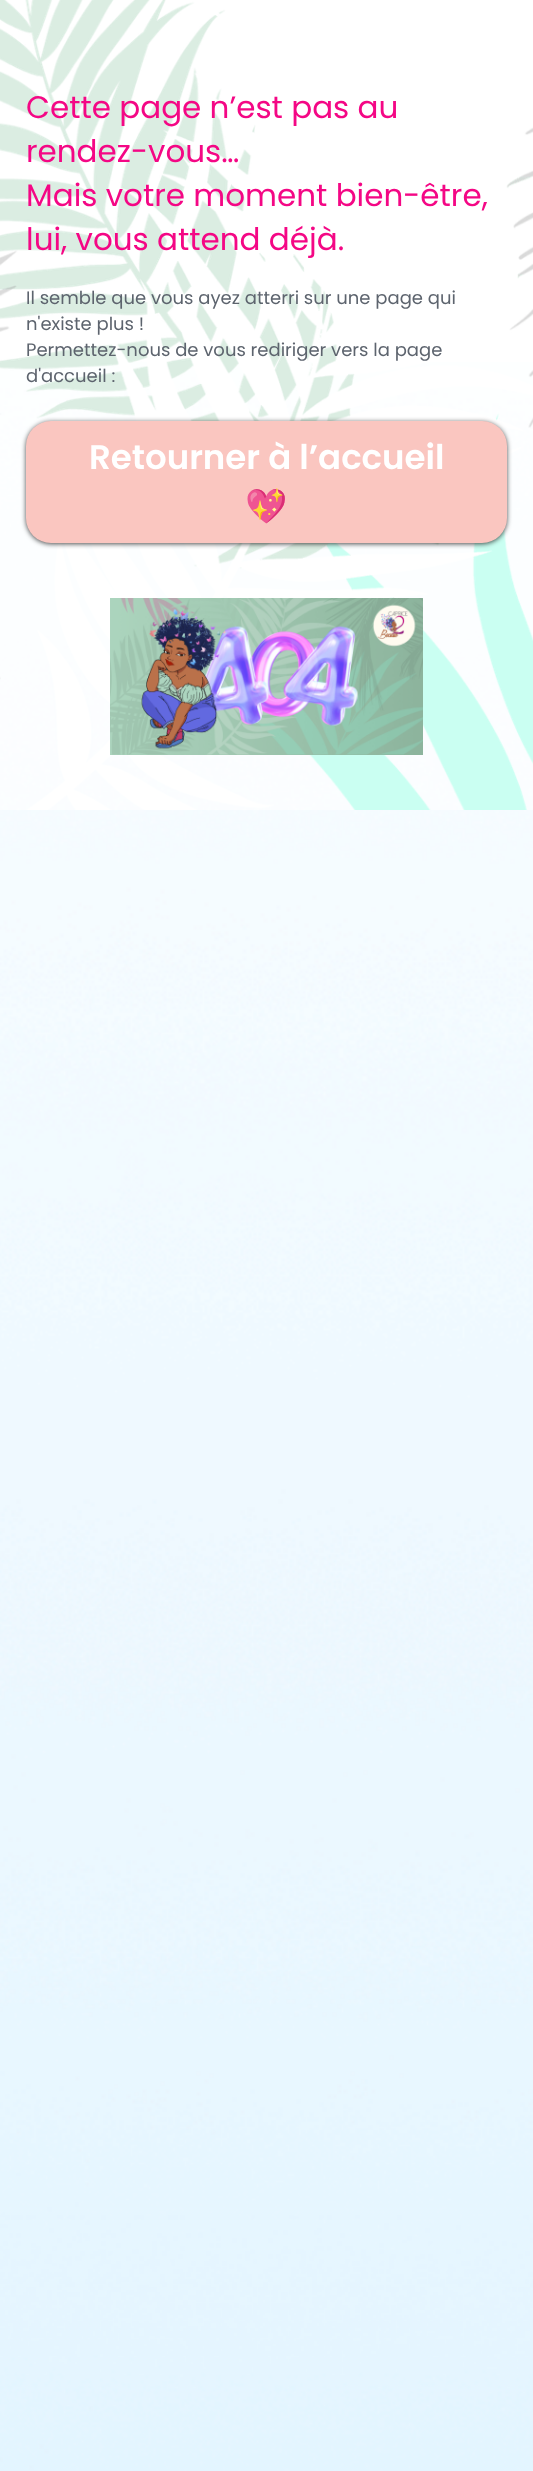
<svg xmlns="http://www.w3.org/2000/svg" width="533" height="2471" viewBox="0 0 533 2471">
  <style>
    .t1 { font: 31px Poppins; fill: #f40785; }
    .t2 { font: 18px Poppins; fill: #5d646e; }
    .t3 { font: 600 34px Poppins; fill: #fff; }
    .t4 { font: bold 34px Noto Color Emoji; fill: #fff; }
  </style>
  <rect width="100%" height="100%" fill="#fff"/>
  <image x="0" y="362" width="533" height="2109" href="images/3.png"/>
  <image x="0" y="0" width="533" height="810" href="images/1.png"/>
  <text x="26" y="118" class="t1">Cette page n’est pas au</text>
  <text x="26" y="162" class="t1">rendez-vous…</text>
  <text x="26" y="206" class="t1">Mais votre moment bien-être,</text>
  <text x="26" y="250" class="t1">lui, vous attend déjà.</text>
  <text x="26" y="304" class="t2">Il semble que vous ayez atterri sur une page qui</text>
  <text x="26" y="330" class="t2">n'existe plus !</text>
  <text x="26" y="356" class="t2">Permettez-nous de vous rediriger vers la page</text>
  <text x="26" y="382" class="t2">d'accueil :</text>
  <rect x="26" y="422" width="481" height="122" rx="25" fill="#000000b3" filter="blur(2.5px)"/>
  <rect x="26" y="421" width="481" height="122" rx="25" fill="#fac6c0"/>
  <text x="89" y="469" class="t3">Retourner à l’accueil</text>
  <text x="245" y="518" class="t4">💖</text>
  <image x="110" y="598" width="313" height="157" href="images/2.png"/>
</svg>
